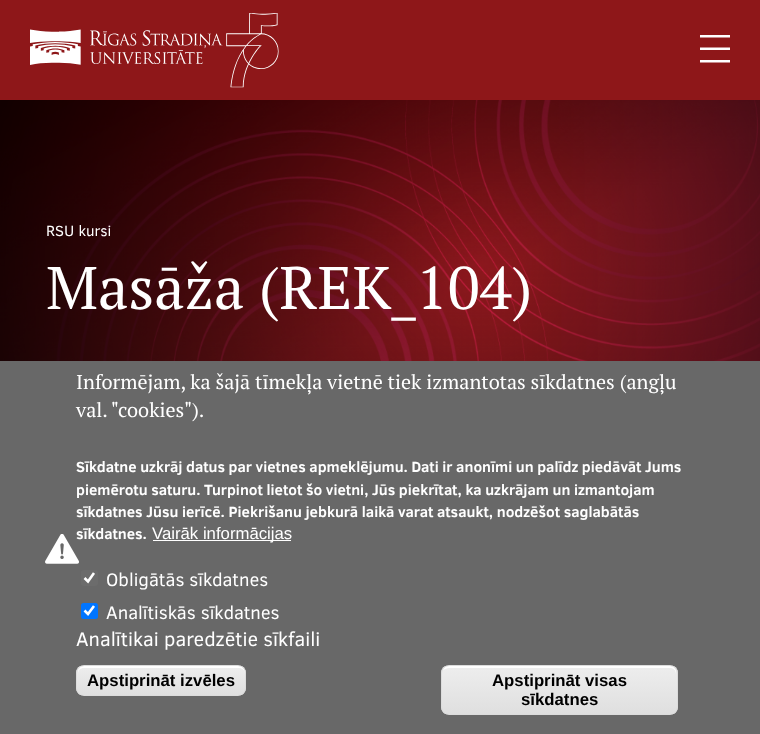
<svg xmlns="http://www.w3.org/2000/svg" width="760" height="734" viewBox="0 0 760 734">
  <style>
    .t1 { font: 15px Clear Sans; fill: #fff; }
    .t2 { font: 60px PT Serif; fill: #fff; }
    .t3 { font: 20px PT Serif; fill: #fff; }
    .t4 { font: bold 15px Clear Sans; fill: #fff; }
    .t5 { font: 16.75px Liberation Sans; fill: #fff; }
    .t6 { font: 18.5px Clear Sans; fill: #fff; }
    .t7 { font: 20px Clear Sans; fill: #fff; }
    .t8 { font: bold 16.75px Liberation Sans; fill: #000; }
  </style>
  <defs>
    <clipPath id="clip1"><rect x="700" y="35" width="30" height="28"/></clipPath>
    <clipPath id="clip2"><rect x="76" y="665" width="170" height="31" rx="8"/></clipPath>
    <linearGradient id="g1" gradientUnits="userSpaceOnUse" x1="161" y1="666" x2="161" y2="695"><stop offset="0.05" stop-color="#ededed"/><stop offset="1" stop-color="#dfdfdf"/></linearGradient>
    <clipPath id="clip3"><rect x="441" y="665" width="237" height="50" rx="8"/></clipPath>
    <linearGradient id="g2" gradientUnits="userSpaceOnUse" x1="559" y1="666" x2="559" y2="714"><stop offset="0.05" stop-color="#ededed"/><stop offset="1" stop-color="#dfdfdf"/></linearGradient>
  </defs>
  <rect width="100%" height="100%" fill="#fff"/>
  <rect x="0" y="0" width="760" height="100" fill="#8e1719"/>
  <image x="30" y="13" width="249" height="75" href="images/1.png"/>
  <g clip-path="url(#clip1)">
    <path d="M700 35H737.5V37.5H700ZM700 47.5H737.5V50H700ZM700 60H737.5V62.5H700Z" fill="#fff" fill-rule="evenodd"/>
  </g>
  <image x="0" y="100" width="760" height="261" href="images/2.png"/>
  <text x="46" y="236" class="t1">RSU kursi</text>
  <text x="46" y="309" class="t2">Masāža (REK_104)</text>
  <rect x="0" y="361" width="760" height="373" fill="#686868"/>
  <image x="45" y="534" width="34" height="30" href="images/3.png"/>
  <text x="76" y="389" class="t3">Informējam, ka šajā tīmekļa vietnē tiek izmantotas sīkdatnes (angļu</text>
  <text x="76" y="417" class="t3">val. "cookies").</text>
  <text x="76" y="472" class="t4">Sīkdatne uzkrāj datus par vietnes apmeklējumu. Dati ir anonīmi un palīdz piedāvāt Jums</text>
  <text x="76" y="495" class="t4">piemērotu saturu. Turpinot lietot šo vietni, Jūs piekrītat, ka uzkrājam un izmantojam</text>
  <text x="76" y="517" class="t4">sīkdatnes Jūsu ierīcē. Piekrišanu jebkurā laikā varat atsaukt, nodzēšot saglabātās</text>
  <text x="76" y="539" class="t4">sīkdatnes.</text>
  <rect x="153" y="540" width="138" height="1" fill="#fff"/>
  <text x="152" y="539" class="t5">Vairāk informācijas</text>
  <rect x="81" y="570" width="17" height="16" rx="2.5" fill="#6c6c6c"/>
  <path d="M84.5 578L88 581.5L94 573" fill="none" stroke="#fff" stroke-width="2.6"/>
  <text x="106" y="586" class="t6">Obligātās sīkdatnes</text>
  <rect x="81" y="603" width="17" height="16" rx="2.5" fill="#0075ff"/>
  <path d="M84.5 610.5L88 614L94 606" fill="none" stroke="#fff" stroke-width="2.6"/>
  <text x="106" y="619" class="t6">Analītiskās sīkdatnes</text>
  <text x="76" y="646" class="t7">Analītikai paredzētie sīkfaili</text>
  <g clip-path="url(#clip2)">
    <rect x="76" y="666" width="170" height="29" fill="url(#g1)"/>
  </g>
  <path d="M84 668H239C242 668 245 670 245 674V672C245 669 242 666 239 666H84C81 666 78 669 78 672V674C78 670 80 668 84 668Z" fill="#fff"/>
  <rect x="76.5" y="665.5" width="169" height="30" rx="7.5" fill="none" stroke="#dcdcdc"/>
  <text x="87" y="686" class="t8">Apstiprināt izvēles</text>
  <g clip-path="url(#clip3)">
    <rect x="441" y="666" width="237" height="48" fill="url(#g2)"/>
  </g>
  <path d="M449 668H670C673 668 676 670 676 674V672C676 669 673 666 670 666H449C446 666 444 668 443 670C445 669 447 668 449 668Z" fill="#fff"/>
  <rect x="441.5" y="665.5" width="236" height="49" rx="7.5" fill="none" stroke="#dcdcdc"/>
  <text x="492" y="686" class="t8">Apstiprināt visas</text>
  <text x="521" y="705" class="t8">sīkdatnes</text>
</svg>
